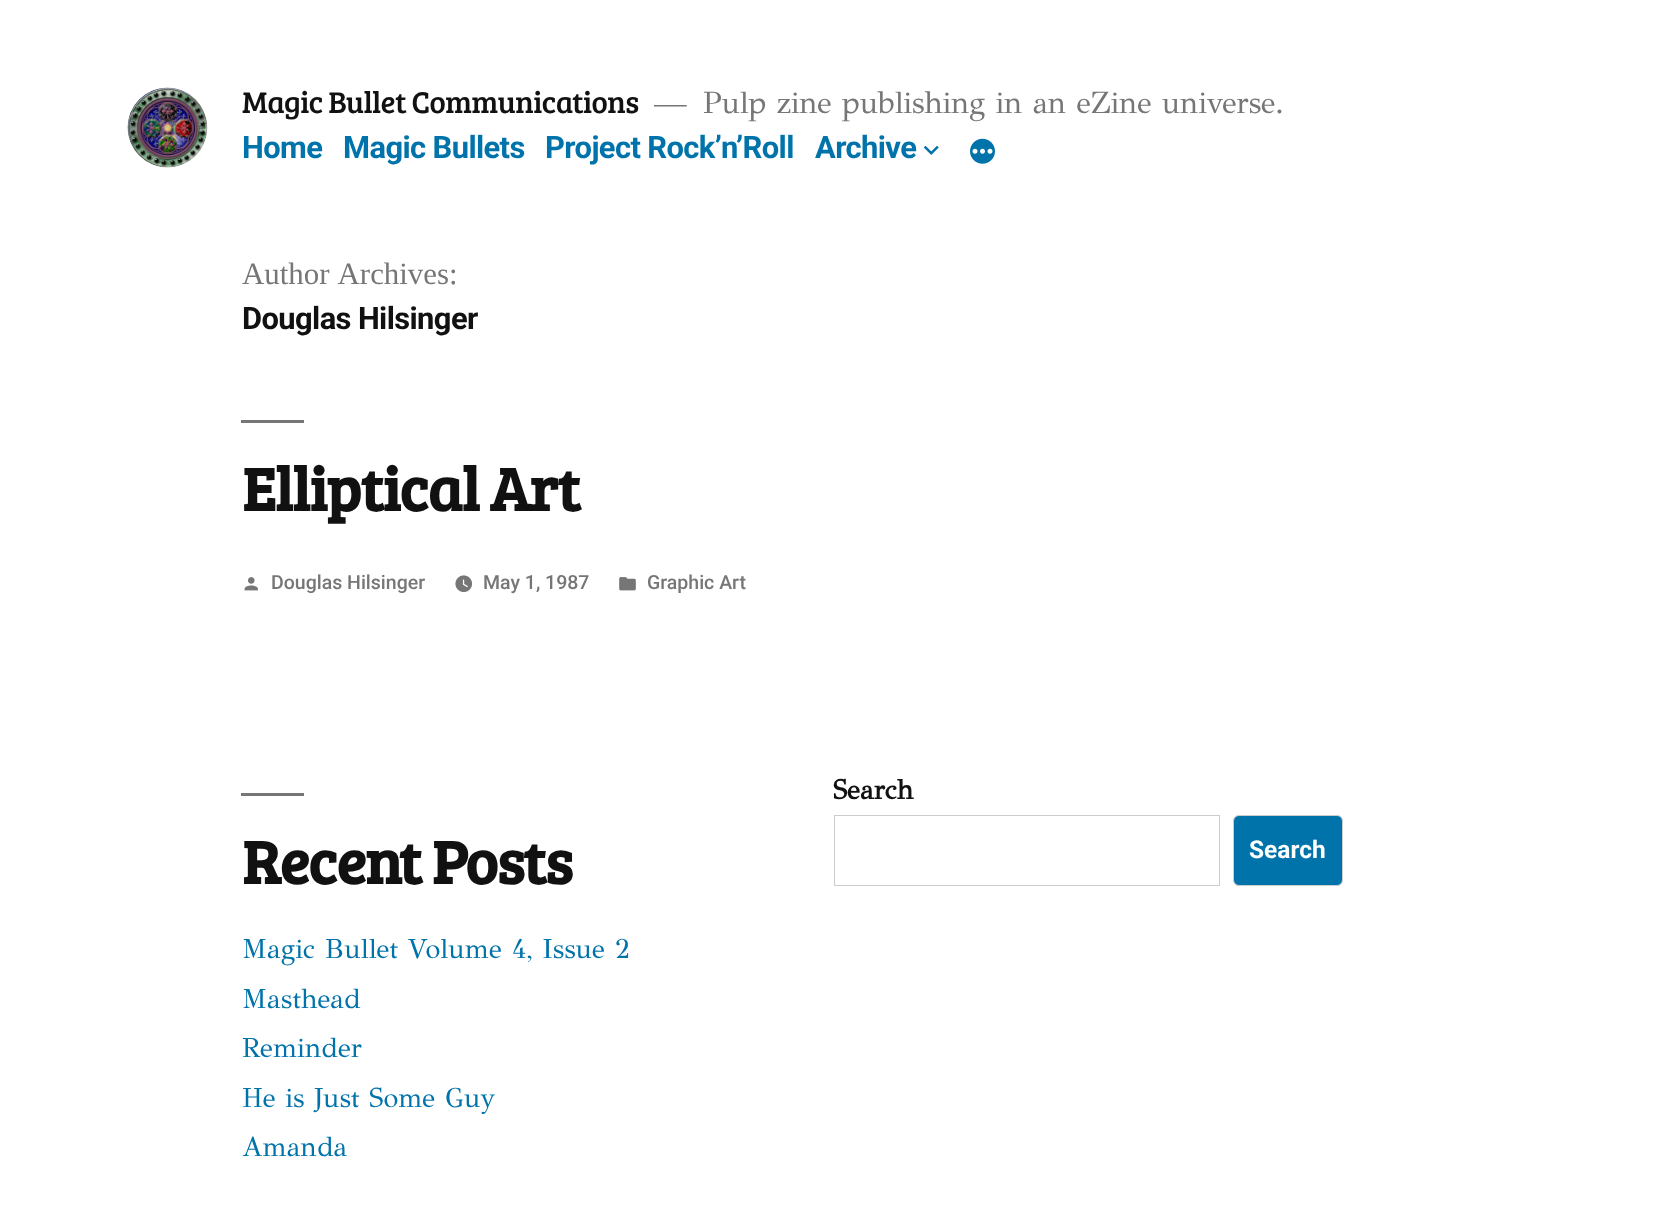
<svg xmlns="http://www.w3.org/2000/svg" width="1666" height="1219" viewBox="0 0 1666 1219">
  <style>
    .t1 { font: 30.9px Bree Serif; letter-spacing: -0.6px; fill: #111; }
    .t2 { font: 30.9px GFS Didot; letter-spacing: -0.3px; fill: #767676; }
    .t3 { font: bold 30.9px Roboto; letter-spacing: -0.6px; fill: #0073aa; }
    .t4 { font: 30.9px Liberation Serif; fill: #767676; }
    .t5 { font: bold 30.9px Roboto; letter-spacing: -0.6px; fill: #111; }
    .t6 { font: bold 62px Bree Serif; letter-spacing: -1.25px; fill: #111; }
    .t7 { font: 500 19.5px Roboto; fill: #767676; }
    .t8 { font: bold 27.5px GFS Didot; fill: #111; }
    .t9 { font: bold 24.5px Roboto; fill: #fff; }
    .t10 { font: 27.5px GFS Didot; fill: #0073aa; }
  </style>
  <rect width="100%" height="100%" fill="#fff"/>
  <image x="127" y="87" width="81" height="81" href="images/1.png"/>
  <text x="242" y="113" class="t1">Magic Bullet Communications</text>
  <text x="654" y="113" class="t2">—</text>
  <text x="703" y="113" class="t2">Pulp zine publishing in an eZine universe.</text>
  <text x="242" y="158" class="t3">Home</text>
  <text x="343" y="158" class="t3">Magic Bullets</text>
  <text x="545" y="158" class="t3">Project Rock’n’Roll</text>
  <text x="815" y="158" class="t3">Archive</text>
  <image x="923" y="145" width="16" height="10" href="images/2.png"/>
  <image x="970" y="138" width="25" height="26" href="images/3.png"/>
  <text x="242" y="284" word-spacing="2" class="t4">Author Archives:</text>
  <text x="242" y="329" class="t5">Douglas Hilsinger</text>
  <rect x="241" y="420" width="63" height="3" fill="#767676"/>
  <text x="242" y="511" class="t6">Elliptical Art</text>
  <image x="244" y="577" width="14" height="14" href="images/4.png"/>
  <text x="271" y="589" class="t7">Douglas Hilsinger</text>
  <image x="455" y="575" width="18" height="18" href="images/5.png"/>
  <text x="483" y="589" class="t7">May 1, 1987</text>
  <image x="619" y="577" width="17" height="14" href="images/6.png"/>
  <text x="647" y="589" class="t7">Graphic Art</text>
  <text x="833" y="799" class="t8">Search</text>
  <rect x="834.5" y="815.5" width="385" height="70" fill="none" stroke="#ccc"/>
  <rect x="1233.5" y="815.5" width="109" height="70" rx="5.5" fill="#0073aa" stroke="#ccc"/>
  <text x="1249" y="858" class="t9">Search</text>
  <rect x="241" y="793" width="63" height="3" fill="#767676"/>
  <text x="242" y="884" class="t6">Recent Posts</text>
  <text x="242" y="958" class="t10">Magic Bullet Volume 4, Issue 2</text>
  <text x="242" y="1008" class="t10">Masthead</text>
  <text x="242" y="1057" class="t10">Reminder</text>
  <text x="242" y="1107" class="t10">He is Just Some Guy</text>
  <text x="242" y="1156" class="t10">Amanda</text>
</svg>
